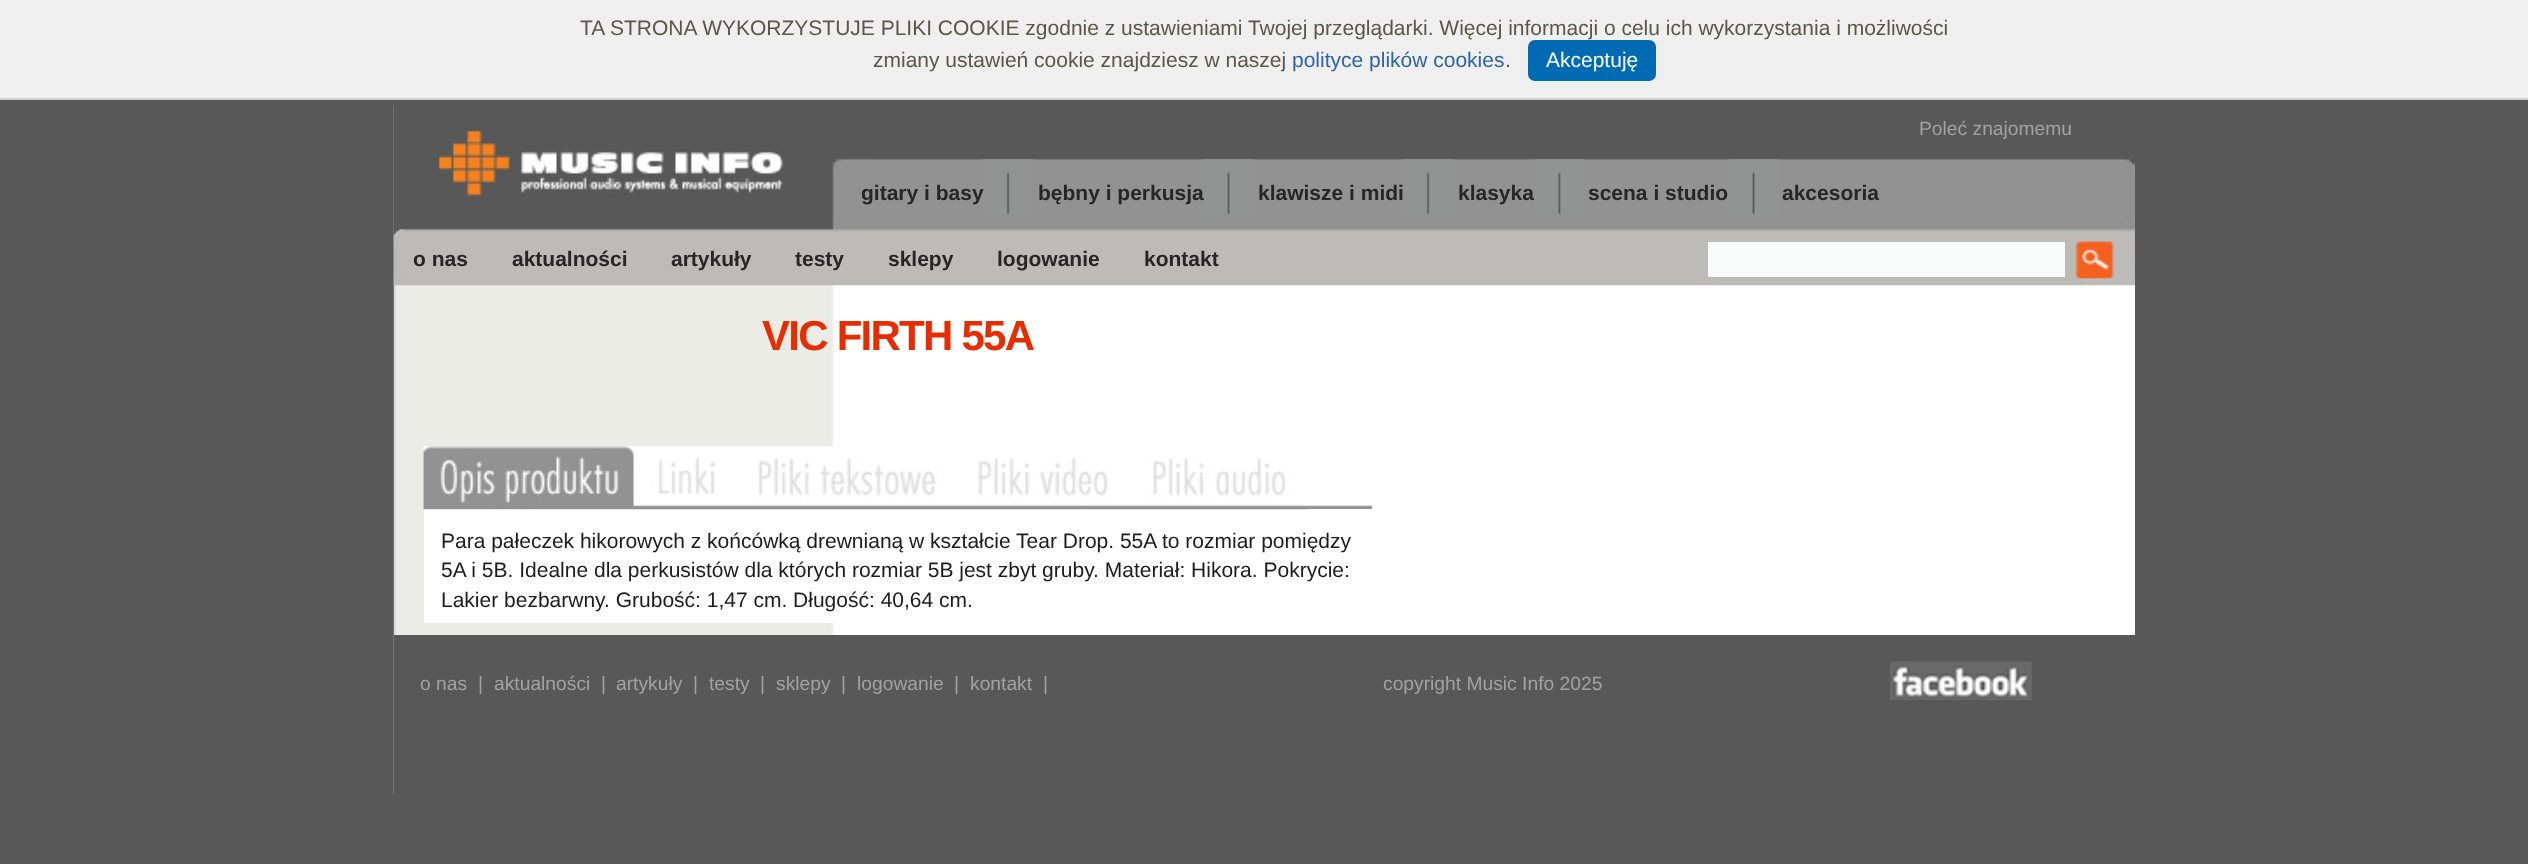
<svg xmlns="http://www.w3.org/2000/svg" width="2528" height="864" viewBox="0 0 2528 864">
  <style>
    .t1 { font: 21px Liberation Sans; fill: #59564c; }
    .t2 { font: 21px Liberation Sans; fill: #2d63a8; }
    .t3 { font: 21px Liberation Sans; fill: #fff; }
    .t4 { font: 19.25px Liberation Sans; fill: #a2a2a2; }
    .t5 { font: bold 21px Liberation Sans; fill: #262626; }
    .t6 { font: bold 42px Liberation Sans; letter-spacing: -1.75px; fill: #e62c00; }
    .t7 { font: 21px Liberation Sans; fill: #1c1c1c; }
  </style>
  <rect width="100%" height="100%" fill="#585858"/>
  <rect x="0" y="0" width="2528" height="98" fill="#efefef"/>
  <rect x="0" y="98" width="2528" height="2" fill="#d3d0d0"/>
  <text x="580" y="35" class="t1">TA STRONA WYKORZYSTUJE PLIKI COOKIE zgodnie z ustawieniami Twojej przeglądarki. Więcej informacji o celu ich wykorzystania i możliwości</text>
  <text x="873" y="67" class="t1">zmiany ustawień cookie znajdziesz w naszej</text>
  <text x="1292" y="67" class="t2">polityce plików cookies</text>
  <text x="1505" y="67" class="t1">.</text>
  <rect x="1528" y="40" width="128" height="41" rx="7" fill="#006ab3"/>
  <text x="1546" y="67" class="t3">Akceptuję</text>
  <rect x="834" y="285" width="1301" height="350" fill="#fff"/>
  <image x="393" y="105" width="441" height="690" href="images/1.png"/>
  <image x="393" y="105" width="1742" height="181" href="images/2.png"/>
  <image x="438" y="130" width="345" height="67" href="images/3.png"/>
  <text x="1919" y="135" class="t4">Poleć znajomemu</text>
  <text x="861" y="200" class="t5">gitary i basy</text>
  <image x="983" y="159" width="50" height="56" href="images/4.png"/>
  <text x="1038" y="200" class="t5">bębny i perkusja</text>
  <image x="1204" y="159" width="49" height="56" href="images/5.png"/>
  <text x="1258" y="200" class="t5">klawisze i midi</text>
  <image x="1403" y="159" width="50" height="56" href="images/6.png"/>
  <text x="1458" y="200" class="t5">klasyka</text>
  <image x="1534" y="159" width="50" height="56" href="images/7.png"/>
  <text x="1588" y="200" class="t5">scena i studio</text>
  <image x="1729" y="159" width="49" height="56" href="images/8.png"/>
  <text x="1782" y="200" class="t5">akcesoria</text>
  <text x="413" y="266" class="t5">o nas</text>
  <text x="512" y="266" class="t5">aktualności</text>
  <text x="671" y="266" class="t5">artykuły</text>
  <text x="795" y="266" class="t5">testy</text>
  <text x="888" y="266" class="t5">sklepy</text>
  <text x="997" y="266" class="t5">logowanie</text>
  <text x="1144" y="266" class="t5">kontakt</text>
  <rect x="1708" y="242" width="357" height="35" fill="#f9fafa"/>
  <image x="2075" y="241" width="39" height="38" href="images/9.png"/>
  <text x="762" y="350" class="t6">VIC FIRTH 55A</text>
  <image x="423" y="446" width="949" height="64" href="images/10.png"/>
  <rect x="424" y="509" width="948" height="114" fill="#fff"/>
  <image x="423" y="446" width="213" height="64" href="images/11.png"/>
  <image x="635" y="457" width="102" height="53" href="images/12.png"/>
  <image x="736" y="458" width="222" height="52" href="images/13.png"/>
  <image x="957" y="458" width="172" height="52" href="images/14.png"/>
  <image x="1128" y="458" width="180" height="52" href="images/15.png"/>
  <text x="441" y="548" class="t7">Para pałeczek hikorowych z końcówką drewnianą w kształcie Tear Drop. 55A to rozmiar pomiędzy</text>
  <text x="441" y="577" class="t7">5A i 5B. Idealne dla perkusistów dla których rozmiar 5B jest zbyt gruby. Materiał: Hikora. Pokrycie:</text>
  <text x="441" y="607" class="t7">Lakier bezbarwny. Grubość: 1,47 cm. Długość: 40,64 cm.</text>
  <rect x="394" y="635" width="440" height="160" fill="#585858"/>
  <text x="420" y="690" class="t4">o nas</text>
  <text x="478" y="690" class="t4">|</text>
  <text x="494" y="690" class="t4">aktualności</text>
  <text x="601" y="690" class="t4">|</text>
  <text x="616" y="690" class="t4">artykuły</text>
  <text x="693" y="690" class="t4">|</text>
  <text x="709" y="690" class="t4">testy</text>
  <text x="760" y="690" class="t4">|</text>
  <text x="776" y="690" class="t4">sklepy</text>
  <text x="841" y="690" class="t4">|</text>
  <text x="857" y="690" class="t4">logowanie</text>
  <text x="954" y="690" class="t4">|</text>
  <text x="970" y="690" class="t4">kontakt</text>
  <text x="1043" y="690" class="t4">|</text>
  <text x="1383" y="690" class="t4">copyright Music Info 2025</text>
  <image x="1890" y="661" width="142" height="39" href="images/16.png"/>
</svg>
